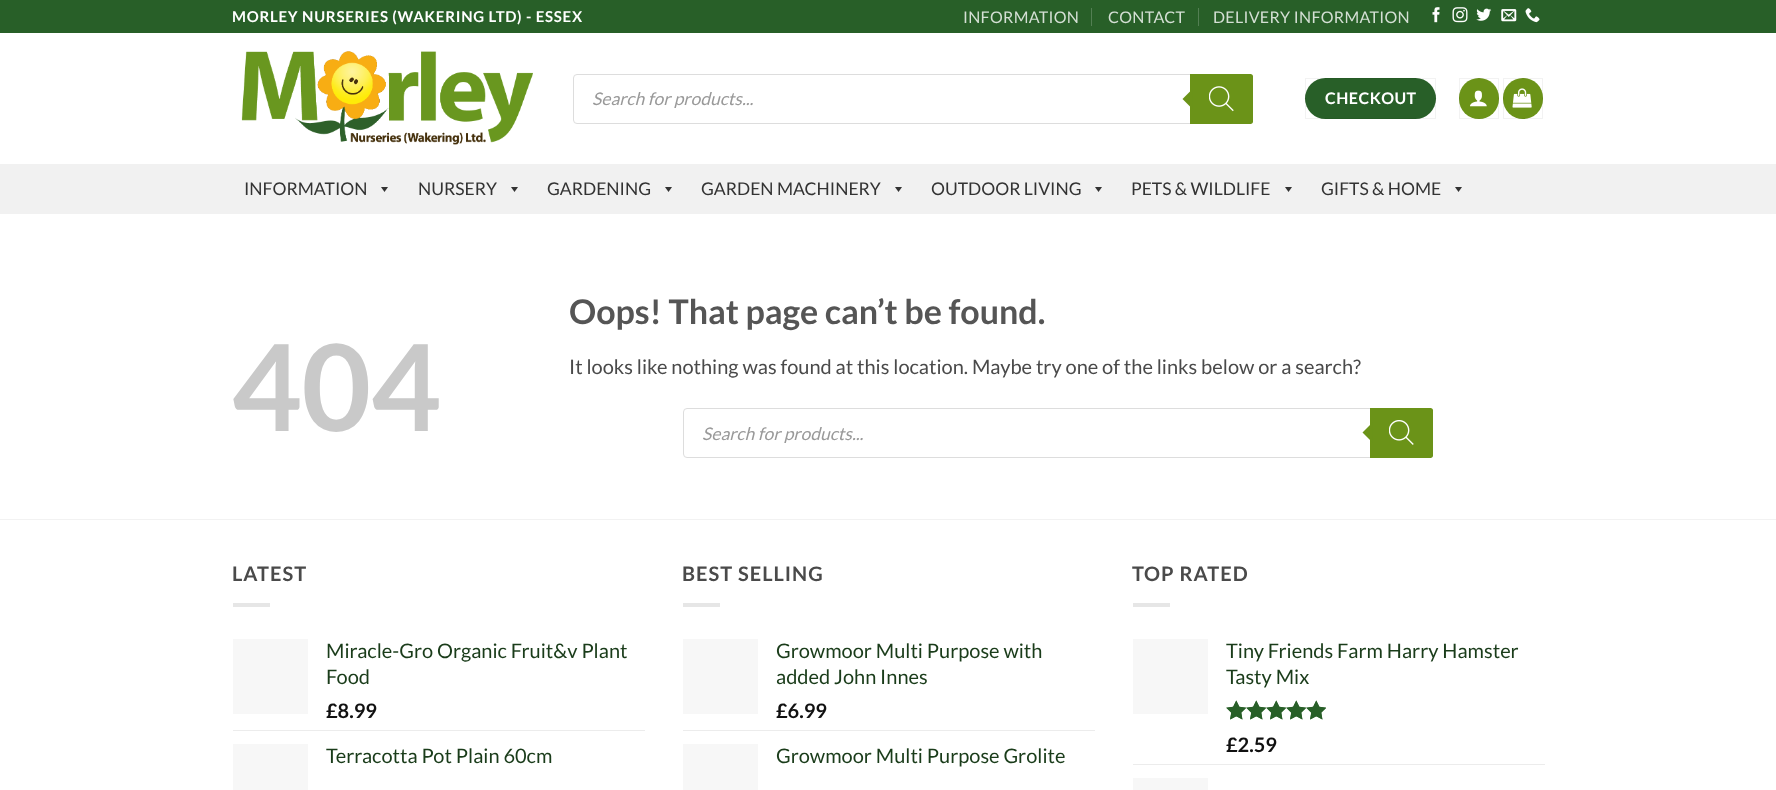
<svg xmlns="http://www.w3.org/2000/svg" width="1776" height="790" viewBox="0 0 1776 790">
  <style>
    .t1 { font: bold 15px Lato; letter-spacing: 0.75px; fill: #fff; }
    .t2 { font: 16px Lato; letter-spacing: 0.3px; fill: #d4dfd4; }
    .t3 { font: italic 17.5px Lato; fill: #999; }
    .t4 { font: bold 16px Lato; letter-spacing: 0.5px; fill: #fff; }
    .t5 { font: 17.5px Lato; fill: #333; }
    .t6 { font: bold 120px Lato; fill: #c9c9c9; }
    .t7 { font: bold 34px Lato; fill: #555; }
    .t8 { font: 20px Lato; fill: #4a4a4a; }
    .t9 { font: bold 20px Lato; letter-spacing: 1px; fill: #4a4a4a; }
    .t10 { font: 20px Lato; fill: #1a3c1a; }
    .t11 { font: bold 20px Lato; fill: #111; }
  </style>
  <rect width="100%" height="100%" fill="#fff"/>
  <rect x="0" y="0" width="1776" height="33" fill="#285f28"/>
  <text x="232" y="22" class="t1">MORLEY NURSERIES (WAKERING LTD) - ESSEX</text>
  <text x="963" y="23" class="t2">INFORMATION</text>
  <rect x="1091" y="8" width="1" height="18" fill="#537f53"/>
  <text x="1108" y="23" class="t2">CONTACT</text>
  <rect x="1198" y="8" width="1" height="18" fill="#537f53"/>
  <text x="1213" y="23" class="t2">DELIVERY INFORMATION</text>
  <image x="1432" y="7" width="8" height="16" href="images/1.png"/>
  <image x="1452" y="7" width="16" height="16" href="images/2.png"/>
  <image x="1476" y="8" width="16" height="13" href="images/3.png"/>
  <image x="1501" y="9" width="16" height="13" href="images/4.png"/>
  <image x="1525" y="8" width="15" height="15" href="images/5.png"/>
  <image x="241" y="51" width="292" height="94" href="images/6.png"/>
  <rect x="573.5" y="74.5" width="679" height="49" rx="3.5" fill="none" stroke="#ddd"/>
  <text x="592" y="105" class="t3">Search for products...</text>
  <path d="M1190 74H1250.5C1252 74 1253 75 1253 76.5V121.5C1253 123 1252 124 1250.5 124H1190Z" fill="#6b9318"/>
  <path d="M1192.5 89V109L1182.5 99Z" fill="#6b9318"/>
  <image x="1209" y="86" width="25" height="26" href="images/7.png"/>
  <rect x="1305" y="78" width="131" height="41" rx="20.5" fill="#285f28"/>
  <rect x="1305.5" y="78.5" width="130" height="40" fill="none" stroke="#0000000d"/>
  <text x="1325" y="104" class="t4">CHECKOUT</text>
  <rect x="1459" y="78" width="40" height="41" rx="20" fill="#6b9318"/>
  <rect x="1459.5" y="78.5" width="39" height="40" fill="none" stroke="#0000000d"/>
  <image x="1470" y="90" width="17" height="17" href="images/8.png"/>
  <rect x="1503" y="78" width="40" height="41" rx="20" fill="#6b9318"/>
  <rect x="1503.5" y="78.5" width="39" height="40" fill="none" stroke="#0000000d"/>
  <image x="1512" y="88" width="20" height="20" href="images/9.png"/>
  <rect x="0" y="164" width="1776" height="50" fill="#f1f1f1"/>
  <text x="244" y="195" class="t5">INFORMATION</text>
  <path d="M388 187L384.5 192L381 187Z" fill="#333"/>
  <text x="418" y="195" class="t5">NURSERY</text>
  <path d="M518 187L514.5 192L511 187Z" fill="#333"/>
  <text x="547" y="195" class="t5">GARDENING</text>
  <path d="M672 187L668.5 192L665 187Z" fill="#333"/>
  <text x="701" y="195" class="t5">GARDEN MACHINERY</text>
  <path d="M902 187L898.5 192L895 187Z" fill="#333"/>
  <text x="931" y="195" class="t5">OUTDOOR LIVING</text>
  <path d="M1102 187L1098.5 192L1095 187Z" fill="#333"/>
  <text x="1131" y="195" class="t5">PETS &amp; WILDLIFE</text>
  <path d="M1292 187L1288.5 192L1285 187Z" fill="#333"/>
  <text x="1321" y="195" class="t5">GIFTS &amp; HOME</text>
  <path d="M1462 187L1458.5 192L1455 187Z" fill="#333"/>
  <text x="232" y="431" class="t6">404</text>
  <text x="569" y="324" class="t7">Oops! That page can’t be found.</text>
  <text x="569" y="374" class="t8">It looks like nothing was found at this location. Maybe try one of the links below or a search?</text>
  <rect x="683.5" y="408.5" width="749" height="49" rx="3.5" fill="none" stroke="#ddd"/>
  <text x="702" y="440" class="t3">Search for products...</text>
  <path d="M1370 408H1430.5C1432 408 1433 409 1433 410.5V455.5C1433 457 1432 458 1430.5 458H1370Z" fill="#6b9318"/>
  <path d="M1372.5 422.5V442.5L1362.5 432.5Z" fill="#6b9318"/>
  <image x="1389" y="420" width="25" height="25" href="images/10.png"/>
  <rect x="0" y="519" width="1776" height="1" fill="#f2f2f2"/>
  <text x="232" y="581" class="t9">LATEST</text>
  <rect x="233" y="603" width="37" height="4" fill="#e6e6e6"/>
  <rect x="233" y="639" width="75" height="75" fill="#f7f7f7"/>
  <text x="326" y="658" class="t10">Miracle-Gro Organic Fruit&amp;v Plant</text>
  <text x="326" y="684" class="t10">Food</text>
  <text x="326" y="718" class="t11">£8.99</text>
  <rect x="233" y="730" width="412" height="1" fill="#ececec"/>
  <rect x="233" y="744" width="75" height="46" fill="#f7f7f7"/>
  <text x="326" y="763" class="t10">Terracotta Pot Plain 60cm</text>
  <text x="682" y="581" class="t9">BEST SELLING</text>
  <rect x="683" y="603" width="37" height="4" fill="#e6e6e6"/>
  <rect x="683" y="639" width="75" height="75" fill="#f7f7f7"/>
  <text x="776" y="658" class="t10">Growmoor Multi Purpose with</text>
  <text x="776" y="684" class="t10">added John Innes</text>
  <text x="776" y="718" class="t11">£6.99</text>
  <rect x="683" y="730" width="412" height="1" fill="#ececec"/>
  <rect x="683" y="744" width="75" height="46" fill="#f7f7f7"/>
  <text x="776" y="763" class="t10">Growmoor Multi Purpose Grolite</text>
  <text x="1132" y="581" class="t9">TOP RATED</text>
  <rect x="1133" y="603" width="37" height="4" fill="#e6e6e6"/>
  <rect x="1133" y="639" width="75" height="75" fill="#f7f7f7"/>
  <text x="1226" y="658" class="t10">Tiny Friends Farm Harry Hamster</text>
  <text x="1226" y="684" class="t10">Tasty Mix</text>
  <image x="1226" y="700" width="100" height="20" href="images/11.png"/>
  <image x="1226" y="700" width="100" height="20" href="images/12.png"/>
  <text x="1226" y="752" class="t11">£2.59</text>
  <rect x="1133" y="764" width="412" height="1" fill="#ececec"/>
  <rect x="1133" y="778" width="75" height="12" fill="#f7f7f7"/>
</svg>
